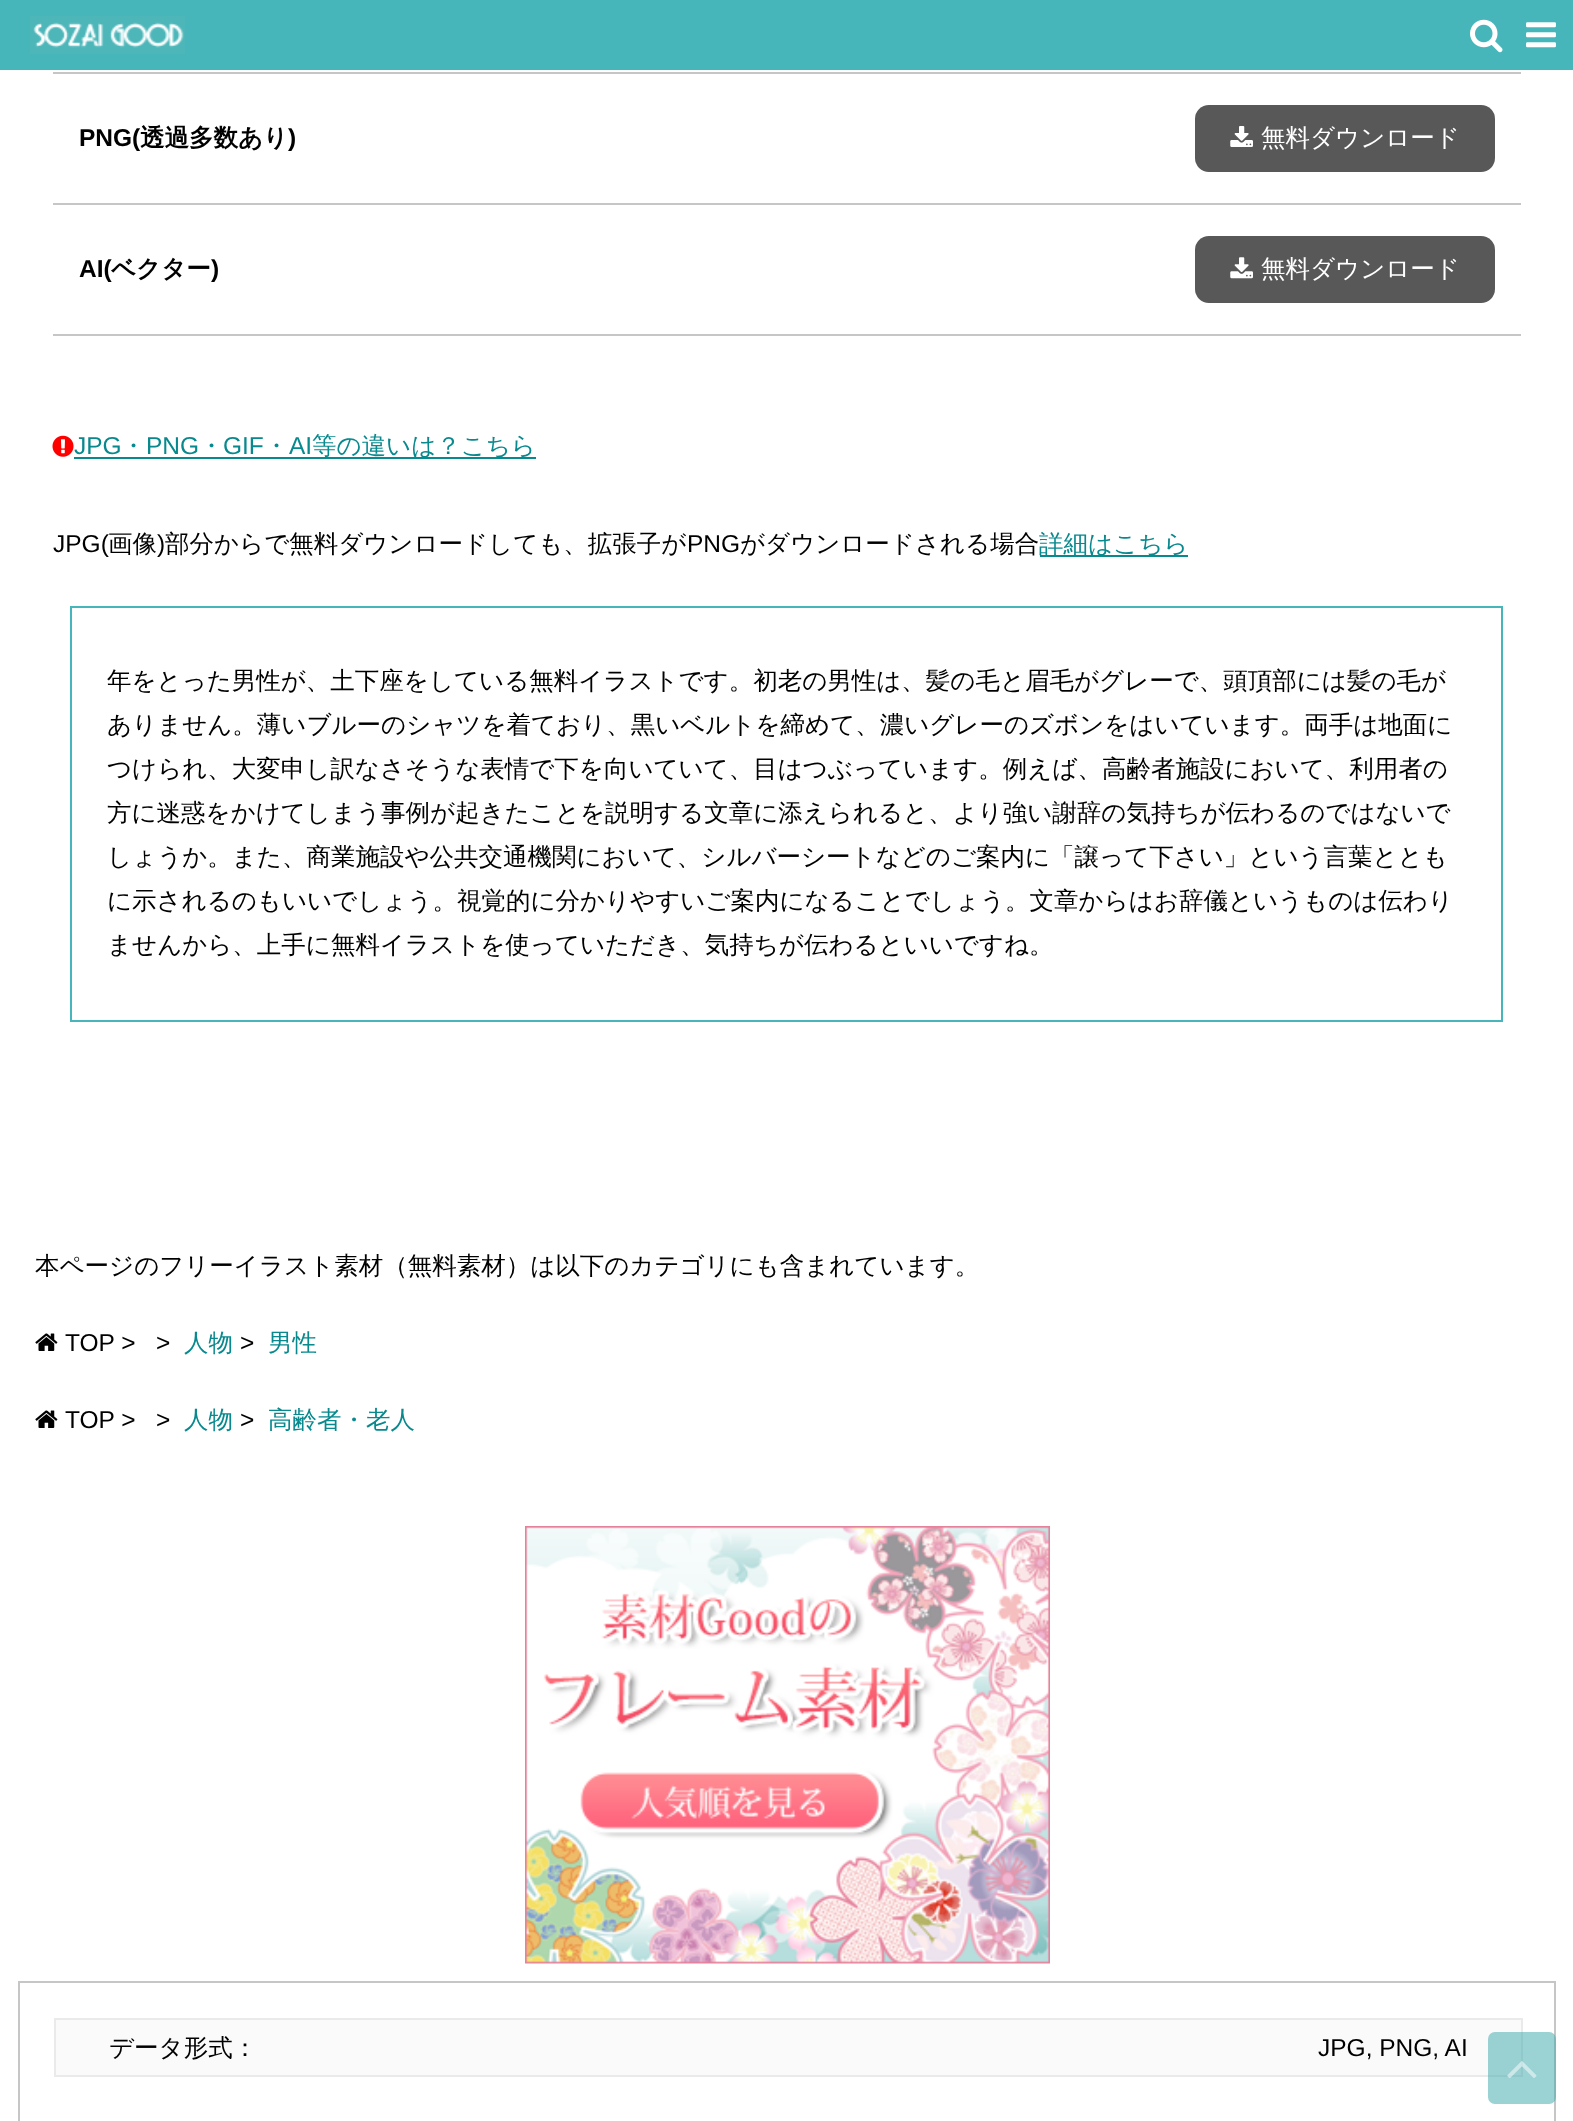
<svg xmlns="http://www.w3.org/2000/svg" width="1573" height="2121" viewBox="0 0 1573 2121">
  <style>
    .t1 { font: bold 24.5px Liberation Sans; fill: #000; }
    .t2 { font: bold 24.5px WenQuanYi Zen Hei; fill: #000; }
    .t3 { font: 500 24.5px WenQuanYi Zen Hei; fill: #fff; }
    .t4 { font: 24.5px Liberation Sans; fill: #08898e; }
    .t5 { font: 500 24.5px WenQuanYi Zen Hei; fill: #08898e; }
    .t6 { font: 24.5px Liberation Sans; fill: #000; }
    .t7 { font: 500 24.5px WenQuanYi Zen Hei; fill: #000; }
  </style>
  <rect width="100%" height="100%" fill="#fff"/>
  <rect x="0" y="0" width="1573" height="70" fill="#46b6ba"/>
  <image x="30" y="16" width="155" height="38" href="images/1.png"/>
  <image x="1470" y="19" width="33" height="34" href="images/2.png"/>
  <image x="1526" y="22" width="30" height="26" href="images/3.png"/>
  <rect x="53" y="72" width="1468" height="2" fill="#c6c6c6"/>
  <rect x="53" y="203" width="1468" height="2" fill="#c6c6c6"/>
  <text x="79" y="146" class="t1">PNG(</text>
  <text x="140" y="146" class="t2">透過多数あり</text>
  <text x="288" y="146" class="t1">)</text>
  <rect x="1195" y="105" width="300" height="67" rx="14" fill="#585858"/>
  <image x="1230" y="126" width="23" height="21" href="images/4.png"/>
  <text x="1261" y="146" class="t3">無料ダウンロード</text>
  <rect x="53" y="334" width="1468" height="2" fill="#c6c6c6"/>
  <text x="79" y="277" class="t1">AI(</text>
  <text x="111" y="277" class="t2">ベクター</text>
  <text x="211" y="277" class="t1">)</text>
  <rect x="1195" y="236" width="300" height="67" rx="14" fill="#585858"/>
  <image x="1230" y="257" width="23" height="22" href="images/5.png"/>
  <text x="1261" y="277" class="t3">無料ダウンロード</text>
  <image x="52" y="435" width="22" height="22" href="images/6.png"/>
  <text x="74" y="454" class="t4">JPG</text>
  <rect x="74" y="457" width="462" height="2" fill="#08898e"/>
  <text x="121" y="454" class="t5">・</text>
  <text x="146" y="454" class="t4">PNG</text>
  <text x="199" y="454" class="t5">・</text>
  <text x="223" y="454" class="t4">GIF</text>
  <text x="264" y="454" class="t5">・</text>
  <text x="289" y="454" class="t4">AI</text>
  <text x="312" y="454" class="t5">等の違いは？こちら</text>
  <text x="53" y="552" class="t6">JPG(</text>
  <text x="108" y="552" class="t7">画像</text>
  <text x="157" y="552" class="t6">)</text>
  <text x="165" y="552" class="t7">部分からで無料ダウンロードしても、拡張子が</text>
  <text x="687" y="552" class="t6">PNG</text>
  <text x="740" y="552" class="t7">がダウンロードされる場合</text>
  <rect x="1040" y="555" width="148" height="2" fill="#08898e"/>
  <text x="1039" y="552" class="t5">詳細はこちら</text>
  <rect x="71" y="607" width="1431" height="414" fill="none" stroke="#46b6ba" stroke-width="2"/>
  <text x="107" y="689" class="t7">年をとった男性が、土下座をしている無料イラストです。初老の男性は、髪の毛と眉毛がグレーで、頭頂部には髪の毛が</text>
  <text x="107" y="733" class="t7">ありません。薄いブルーのシャツを着ており、黒いベルトを締めて、濃いグレーのズボンをはいています。両手は地面に</text>
  <text x="107" y="777" class="t7">つけられ、大変申し訳なさそうな表情で下を向いていて、目はつぶっています。例えば、高齢者施設において、利用者の</text>
  <text x="107" y="821" class="t7">方に迷惑をかけてしまう事例が起きたことを説明する文章に添えられると、より強い謝辞の気持ちが伝わるのではないで</text>
  <text x="107" y="865" class="t7">しょうか。また、商業施設や公共交通機関において、シルバーシートなどのご案内に「譲って下さい」という言葉ととも</text>
  <text x="107" y="909" class="t7">に示されるのもいいでしょう。視覚的に分かりやすいご案内になることでしょう。文章からはお辞儀というものは伝わり</text>
  <text x="107" y="953" class="t7">ませんから、上手に無料イラストを使っていただき、気持ちが伝わるといいですね。</text>
  <text x="35" y="1274" class="t7">本ページのフリーイラスト素材（無料素材）は以下のカテゴリにも含まれています。</text>
  <image x="35" y="1333" width="23" height="18" href="images/7.png"/>
  <text x="65" y="1351" class="t6">TOP &gt;</text>
  <text x="156" y="1351" class="t6">&gt;</text>
  <text x="184" y="1351" class="t5">人物</text>
  <text x="240" y="1351" class="t6">&gt;</text>
  <text x="268" y="1351" class="t5">男性</text>
  <image x="35" y="1410" width="23" height="18" href="images/7.png"/>
  <text x="65" y="1428" class="t6">TOP &gt;</text>
  <text x="156" y="1428" class="t6">&gt;</text>
  <text x="184" y="1428" class="t5">人物</text>
  <text x="240" y="1428" class="t6">&gt;</text>
  <text x="268" y="1428" class="t5">高齢者・老人</text>
  <image x="525" y="1526" width="525" height="438" href="images/8.png"/>
  <rect x="19" y="1982" width="1536" height="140" fill="none" stroke="#c6c6c6" stroke-width="2"/>
  <rect x="55" y="2019" width="1467" height="57" fill="#fafafa" stroke="#eaeaea" stroke-width="2"/>
  <text x="109" y="2056" class="t7">データ形式：</text>
  <text x="1318" y="2056" class="t6">JPG, PNG, AI</text>
  <rect x="1488" y="2032" width="68" height="72" rx="7" fill="#37a6a880"/>
  <image x="1507" y="2061" width="30" height="17" href="images/9.png"/>
</svg>
